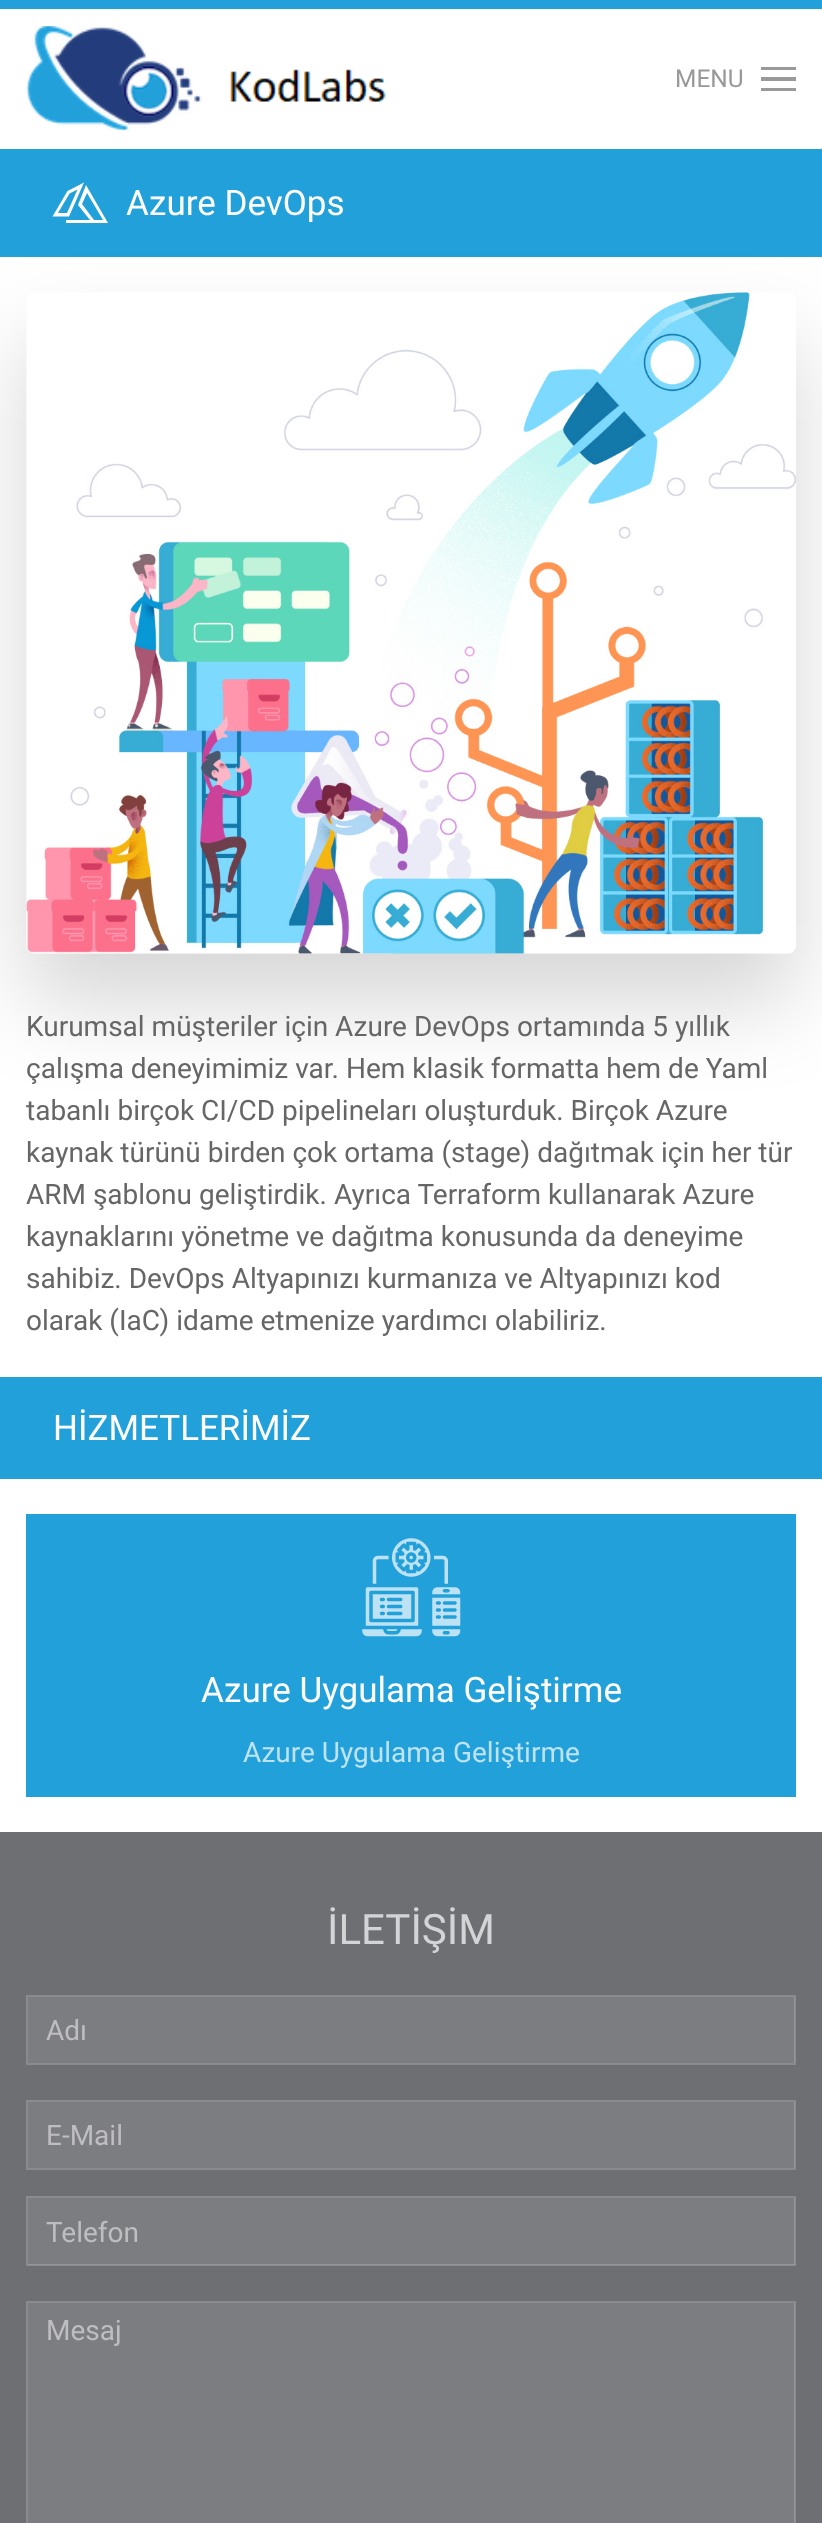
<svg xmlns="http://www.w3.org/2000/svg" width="822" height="2523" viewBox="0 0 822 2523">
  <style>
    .t1 { font: 24.5px Roboto; fill: #999; }
    .t2 { font: 35px Roboto; fill: #fff; }
    .t3 { font: 28px Roboto; fill: #666; }
    .t4 { font: 28px Roboto; fill: #bde3f4; }
    .t5 { font: 42px Roboto; fill: #d3d4d5; }
    .t6 { font: 28px Roboto; fill: #bebec0; }
  </style>
  <rect width="100%" height="100%" fill="#fff"/>
  <rect x="0" y="0" width="822" height="9" fill="#22a0da"/>
  <image x="26" y="26" width="360" height="106" href="images/1.png"/>
  <text x="675" y="87" class="t1">MENU</text>
  <rect x="761" y="67" width="35" height="3" fill="#999"/>
  <rect x="761" y="77" width="35" height="4" fill="#999"/>
  <rect x="761" y="88" width="35" height="3" fill="#999"/>
  <rect x="0" y="149" width="822" height="108" fill="#22a0da"/>
  <path d="M67.5 191L52.5 216.5H69L84 182.5ZM67 213H58L69.5 193.5L77.5 189.5Z" fill="#fff"/>
  <path d="M86 185L78 205L90 220H66V223H108ZM82 204L87 193L103 220H94Z" fill="#fff"/>
  <text x="126" y="215" class="t2">Azure DevOps</text>
  <rect x="26" y="341" width="770" height="662" rx="9" fill="#00000029" filter="blur(44px)"/>
  <image x="26" y="292" width="770" height="662" href="images/2.png"/>
  <text x="26" y="1036" class="t3">Kurumsal müşteriler için Azure DevOps ortamında 5 yıllık</text>
  <text x="26" y="1078" class="t3">çalışma deneyimimiz var. Hem klasik formatta hem de Yaml</text>
  <text x="26" y="1120" class="t3">tabanlı birçok CI/CD pipelineları oluşturduk. Birçok Azure</text>
  <text x="26" y="1162" class="t3">kaynak türünü birden çok ortama (stage) dağıtmak için her tür</text>
  <text x="26" y="1204" class="t3">ARM şablonu geliştirdik. Ayrıca Terraform kullanarak Azure</text>
  <text x="26" y="1246" class="t3">kaynaklarını yönetme ve dağıtma konusunda da deneyime</text>
  <text x="26" y="1288" class="t3">sahibiz. DevOps Altyapınızı kurmanıza ve Altyapınızı kod</text>
  <text x="26" y="1330" class="t3">olarak (IaC) idame etmenize yardımcı olabiliriz.</text>
  <rect x="0" y="1377" width="822" height="102" fill="#22a0da"/>
  <text x="53" y="1440" class="t2">HİZMETLERİMİZ</text>
  <rect x="26" y="1514" width="770" height="283" fill="#22a0da"/>
  <image x="362" y="1538" width="99" height="99" href="images/3.png"/>
  <text x="201" y="1702" class="t2">Azure Uygulama Geliştirme</text>
  <text x="243" y="1762" class="t4">Azure Uygulama Geliştirme</text>
  <rect x="0" y="1832" width="822" height="691" fill="#6d6f72"/>
  <text x="327" y="1944" class="t5">İLETİŞİM</text>
  <rect x="28" y="1997" width="767" height="66" fill="#7c7d80"/>
  <rect x="27" y="1996" width="768" height="68" fill="none" stroke="#ffffff33" stroke-width="2"/>
  <text x="46" y="2040" class="t6">Adı</text>
  <rect x="28" y="2102" width="767" height="66" fill="#7c7d80"/>
  <rect x="27" y="2101" width="768" height="68" fill="none" stroke="#ffffff33" stroke-width="2"/>
  <text x="46" y="2145" class="t6">E-Mail</text>
  <rect x="28" y="2198" width="767" height="67" fill="#7c7d80"/>
  <rect x="27" y="2197" width="768" height="68" fill="none" stroke="#ffffff33" stroke-width="2"/>
  <text x="46" y="2242" class="t6">Telefon</text>
  <rect x="28" y="2303" width="767" height="220" fill="#7c7d80"/>
  <rect x="27" y="2302" width="768" height="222" fill="none" stroke="#ffffff33" stroke-width="2"/>
  <text x="46" y="2340" class="t6">Mesaj</text>
</svg>
